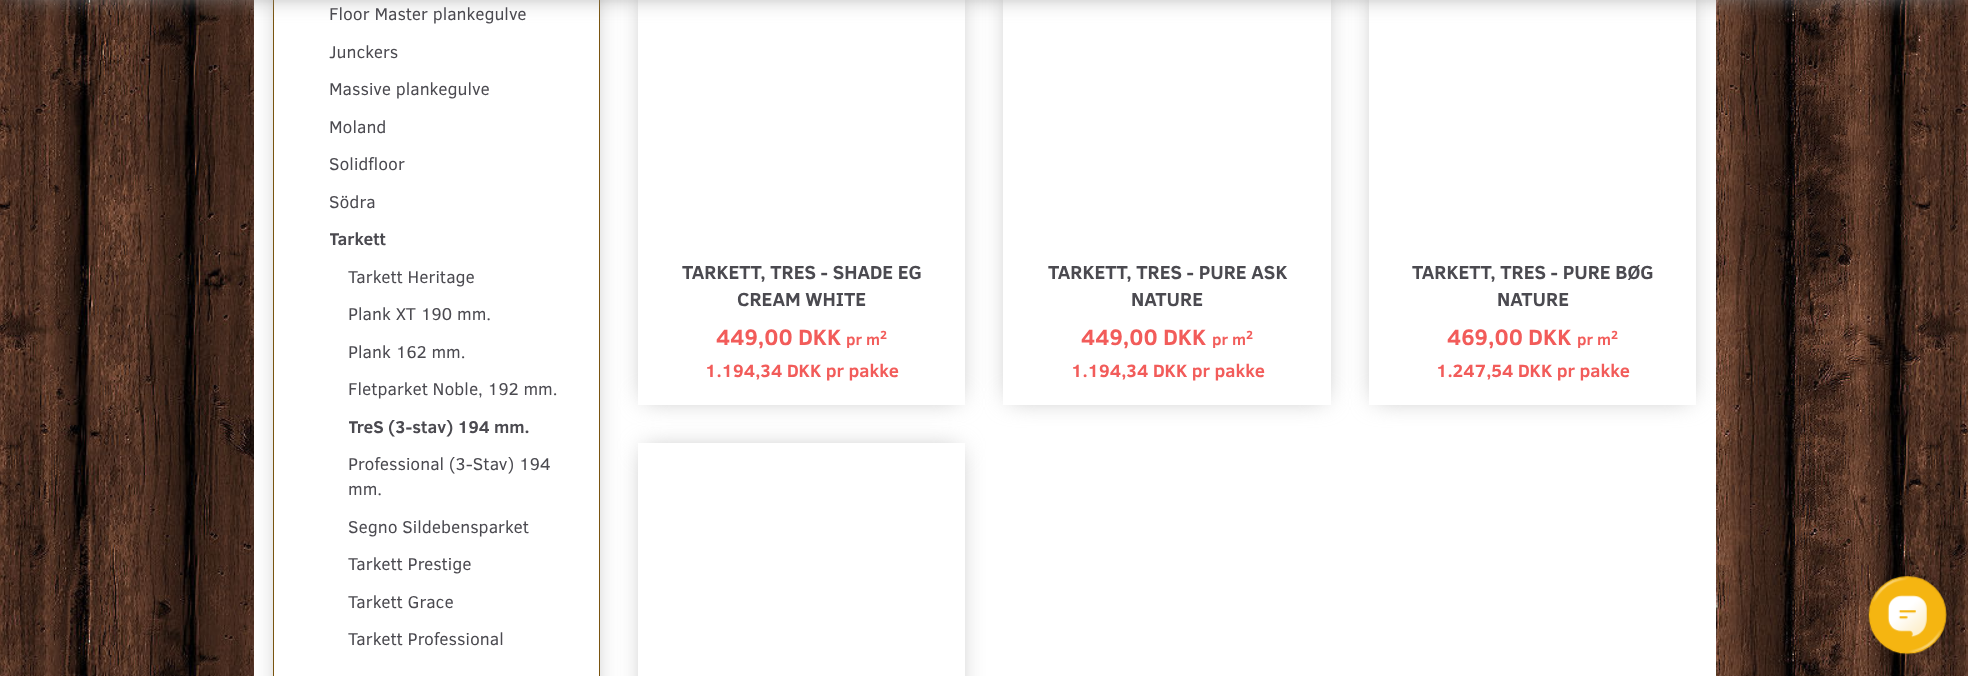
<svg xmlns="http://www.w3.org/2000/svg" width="1968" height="676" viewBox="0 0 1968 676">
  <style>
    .t1 { font: 17.5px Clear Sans; fill: #4b4a50; }
    .t2 { font: bold 17.5px Clear Sans; fill: #4b4a50; }
    .t3 { font: bold 19.25px Clear Sans; fill: #4b4a50; }
    .t4 { font: bold 22.75px Clear Sans; fill: #f25c5a; }
    .t5 { font: bold 12px Clear Sans; fill: #f25c5a; }
    .t6 { font: bold 16px Clear Sans; fill: #f25c5a; }
    .t7 { font: bold 18.25px Clear Sans; fill: #f25c5a; }
  </style>
  <defs>
    <clipPath id="clip1"><path d="M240 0H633V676H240ZM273-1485H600V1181H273Z" clip-rule="evenodd"/></clipPath>
    <clipPath id="clip2"><rect x="330" y="226" width="56" height="25"/></clipPath>
    <clipPath id="clip3"><rect x="349" y="414" width="181" height="25"/></clipPath>
    <clipPath id="clip4"><path d="M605 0H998V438H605ZM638-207H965V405H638Z" clip-rule="evenodd"/></clipPath>
    <clipPath id="clip5"><path d="M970 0H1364V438H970ZM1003-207H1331V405H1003Z" clip-rule="evenodd"/></clipPath>
    <clipPath id="clip6"><path d="M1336 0H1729V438H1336ZM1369-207H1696V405H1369Z" clip-rule="evenodd"/></clipPath>
    <clipPath id="clip7"><path d="M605 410H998V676H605ZM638 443H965V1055H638Z" clip-rule="evenodd"/></clipPath>
  </defs>
  <rect width="100%" height="100%" fill="#fff"/>
  <image x="0" y="0" width="1968" height="676" href="images/1.png"/>
  <rect x="254" y="0" width="1462" height="676" fill="#fff"/>
  <g clip-path="url(#clip1)">
    <rect x="279" y="-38" width="315" height="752" fill="#b8b8b8" filter="blur(12.5px)"/>
  </g>
  <rect x="273.5" y="-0.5" width="326" height="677" fill="none" stroke="#79540f"/>
  <rect x="6" y="-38" width="1957" height="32" fill="#949494" filter="blur(12.5px)"/>
  <text x="329" y="20" class="t1">Floor Master plankegulve</text>
  <text x="329" y="58" class="t1">Junckers</text>
  <text x="329" y="95" class="t1">Massive plankegulve</text>
  <text x="329" y="133" class="t1">Moland</text>
  <text x="329" y="170" class="t1">Solidfloor</text>
  <text x="329" y="208" class="t1">Södra</text>
  <g clip-path="url(#clip2)">
    <text x="329" y="245" class="t2">Tarkett</text>
  </g>
  <text x="348" y="283" class="t1">Tarkett Heritage</text>
  <text x="348" y="320" class="t1">Plank XT 190 mm.</text>
  <text x="348" y="358" class="t1">Plank 162 mm.</text>
  <text x="348" y="395" class="t1">Fletparket Noble, 192 mm.</text>
  <g clip-path="url(#clip3)">
    <text x="348" y="433" class="t2">TreS (3-stav) 194 mm.</text>
  </g>
  <text x="348" y="470" class="t1">Professional (3-Stav) 194</text>
  <text x="348" y="495" class="t1">mm.</text>
  <text x="348" y="533" class="t1">Segno Sildebensparket</text>
  <text x="348" y="570" class="t1">Tarkett Prestige</text>
  <text x="348" y="608" class="t1">Tarkett Grace</text>
  <text x="348" y="645" class="t1">Tarkett Professional</text>
  <g clip-path="url(#clip4)">
    <rect x="644" y="-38" width="315" height="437" fill="#b8b8b8" filter="blur(12.5px)"/>
  </g>
  <text x="682" y="279" class="t3">TARKETT, TRES - SHADE EG</text>
  <text x="737" y="306" class="t3">CREAM WHITE</text>
  <text x="716" y="345" class="t4">449,00 DKK</text>
  <text x="880" y="339" class="t5">2</text>
  <text x="846" y="345" class="t6">pr m</text>
  <text x="705" y="377" class="t7">1.194,34 DKK pr pakke</text>
  <g clip-path="url(#clip5)">
    <rect x="1009" y="-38" width="316" height="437" fill="#b8b8b8" filter="blur(12.5px)"/>
  </g>
  <text x="1048" y="279" class="t3">TARKETT, TRES - PURE ASK</text>
  <text x="1131" y="306" class="t3">NATURE</text>
  <text x="1081" y="345" class="t4">449,00 DKK</text>
  <text x="1246" y="339" class="t5">2</text>
  <text x="1212" y="345" class="t6">pr m</text>
  <text x="1071" y="377" class="t7">1.194,34 DKK pr pakke</text>
  <g clip-path="url(#clip6)">
    <rect x="1375" y="-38" width="315" height="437" fill="#b8b8b8" filter="blur(12.5px)"/>
  </g>
  <text x="1412" y="279" class="t3">TARKETT, TRES - PURE BØG</text>
  <text x="1497" y="306" class="t3">NATURE</text>
  <text x="1447" y="345" class="t4">469,00 DKK</text>
  <text x="1611" y="339" class="t5">2</text>
  <text x="1577" y="345" class="t6">pr m</text>
  <text x="1436" y="377" class="t7">1.247,54 DKK pr pakke</text>
  <g clip-path="url(#clip7)">
    <rect x="644" y="449" width="315" height="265" fill="#b8b8b8" filter="blur(12.5px)"/>
  </g>
  <image x="1868" y="576" width="79" height="79" href="images/2.png"/>
</svg>
